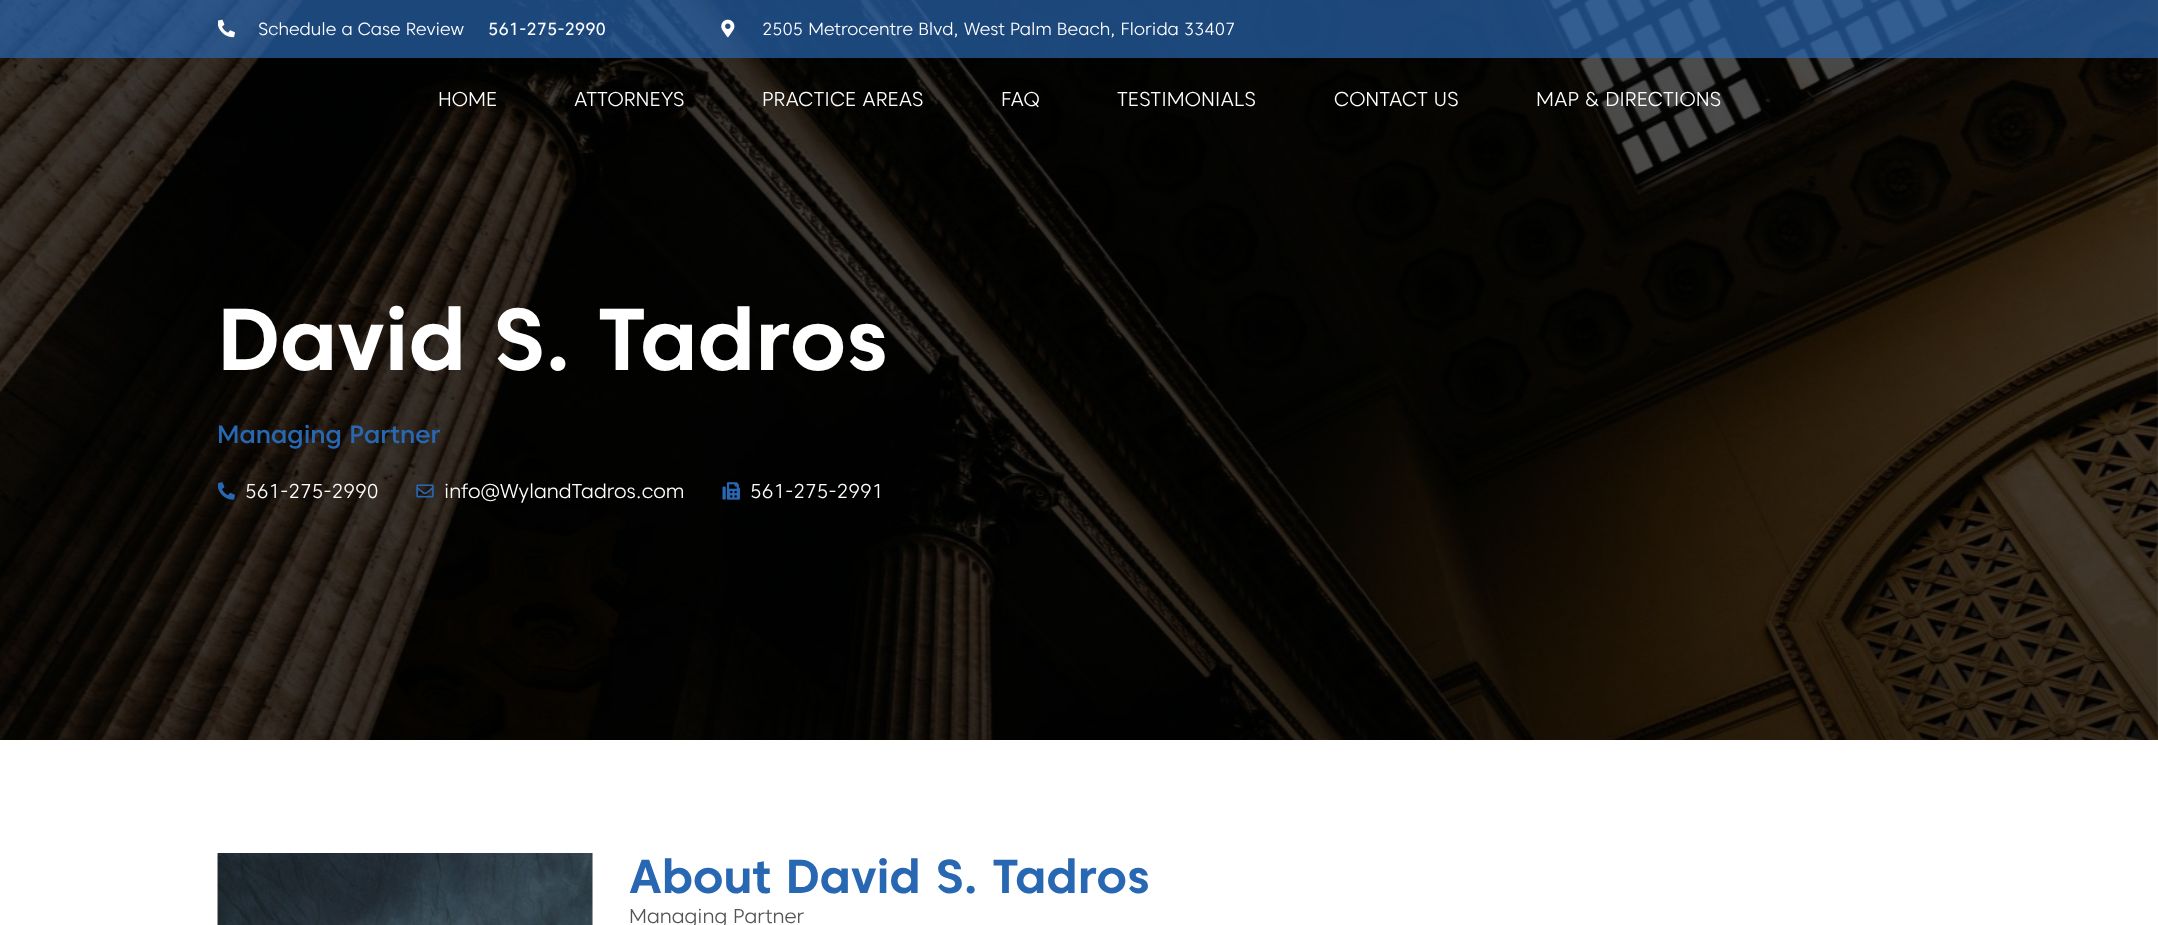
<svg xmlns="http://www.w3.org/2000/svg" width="2158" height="925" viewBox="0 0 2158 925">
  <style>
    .t1 { font: 300 17.5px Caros; fill: #fff; }
    .t2 { font: 17.5px Caros; fill: #fff; }
    .t3 { font: 300 20px Caros; fill: #fff; }
    .t4 { font: bold 87.5px Caros; fill: #fff; }
    .t5 { font: 500 25px Caros; fill: #2867b2; }
    .t6 { font: bold 47.5px Caros; fill: #2867b2; }
    .t7 { font: 300 20px Caros; fill: #545454; }
  </style>
  <rect width="100%" height="100%" fill="#fff"/>
  <image x="0" y="0" width="2158" height="740" href="images/3.png"/>
  <rect x="0" y="0" width="2158" height="58" fill="#2867b2b0"/>
  <image x="218" y="19" width="17" height="19" href="images/1.png"/>
  <text x="258" y="35" class="t1">Schedule a Case Review</text>
  <text x="488" y="35" class="t2">561-275-2990</text>
  <image x="721" y="19" width="14" height="19" href="images/2.png"/>
  <text x="762" y="35" class="t1">2505 Metrocentre Blvd, West Palm Beach, Florida 33407</text>
  <text x="438" y="106" class="t3">HOME</text>
  <text x="574" y="106" class="t3">ATTORNEYS</text>
  <text x="762" y="106" class="t3">PRACTICE AREAS</text>
  <text x="1001" y="106" class="t3">FAQ</text>
  <text x="1117" y="106" class="t3">TESTIMONIALS</text>
  <text x="1334" y="106" class="t3">CONTACT US</text>
  <text x="1536" y="106" class="t3">MAP &amp; DIRECTIONS</text>
  <text x="217" y="370" class="t4">David S. Tadros</text>
  <text x="217" y="443" class="t5">Managing Partner</text>
  <image x="218" y="482" width="17" height="18" href="images/4.png"/>
  <text x="245" y="498" class="t3">561-275-2990</text>
  <image x="416" y="484" width="18" height="14" href="images/5.png"/>
  <text x="444" y="498" class="t3">info@WylandTadros.com</text>
  <image x="722" y="482" width="18" height="18" href="images/6.png"/>
  <text x="750" y="498" class="t3">561-275-2991</text>
  <image x="217" y="853" width="376" height="72" href="images/7.png"/>
  <text x="629" y="893" class="t6">About David S. Tadros</text>
  <text x="629" y="923" class="t7">Managing Partner</text>
</svg>
